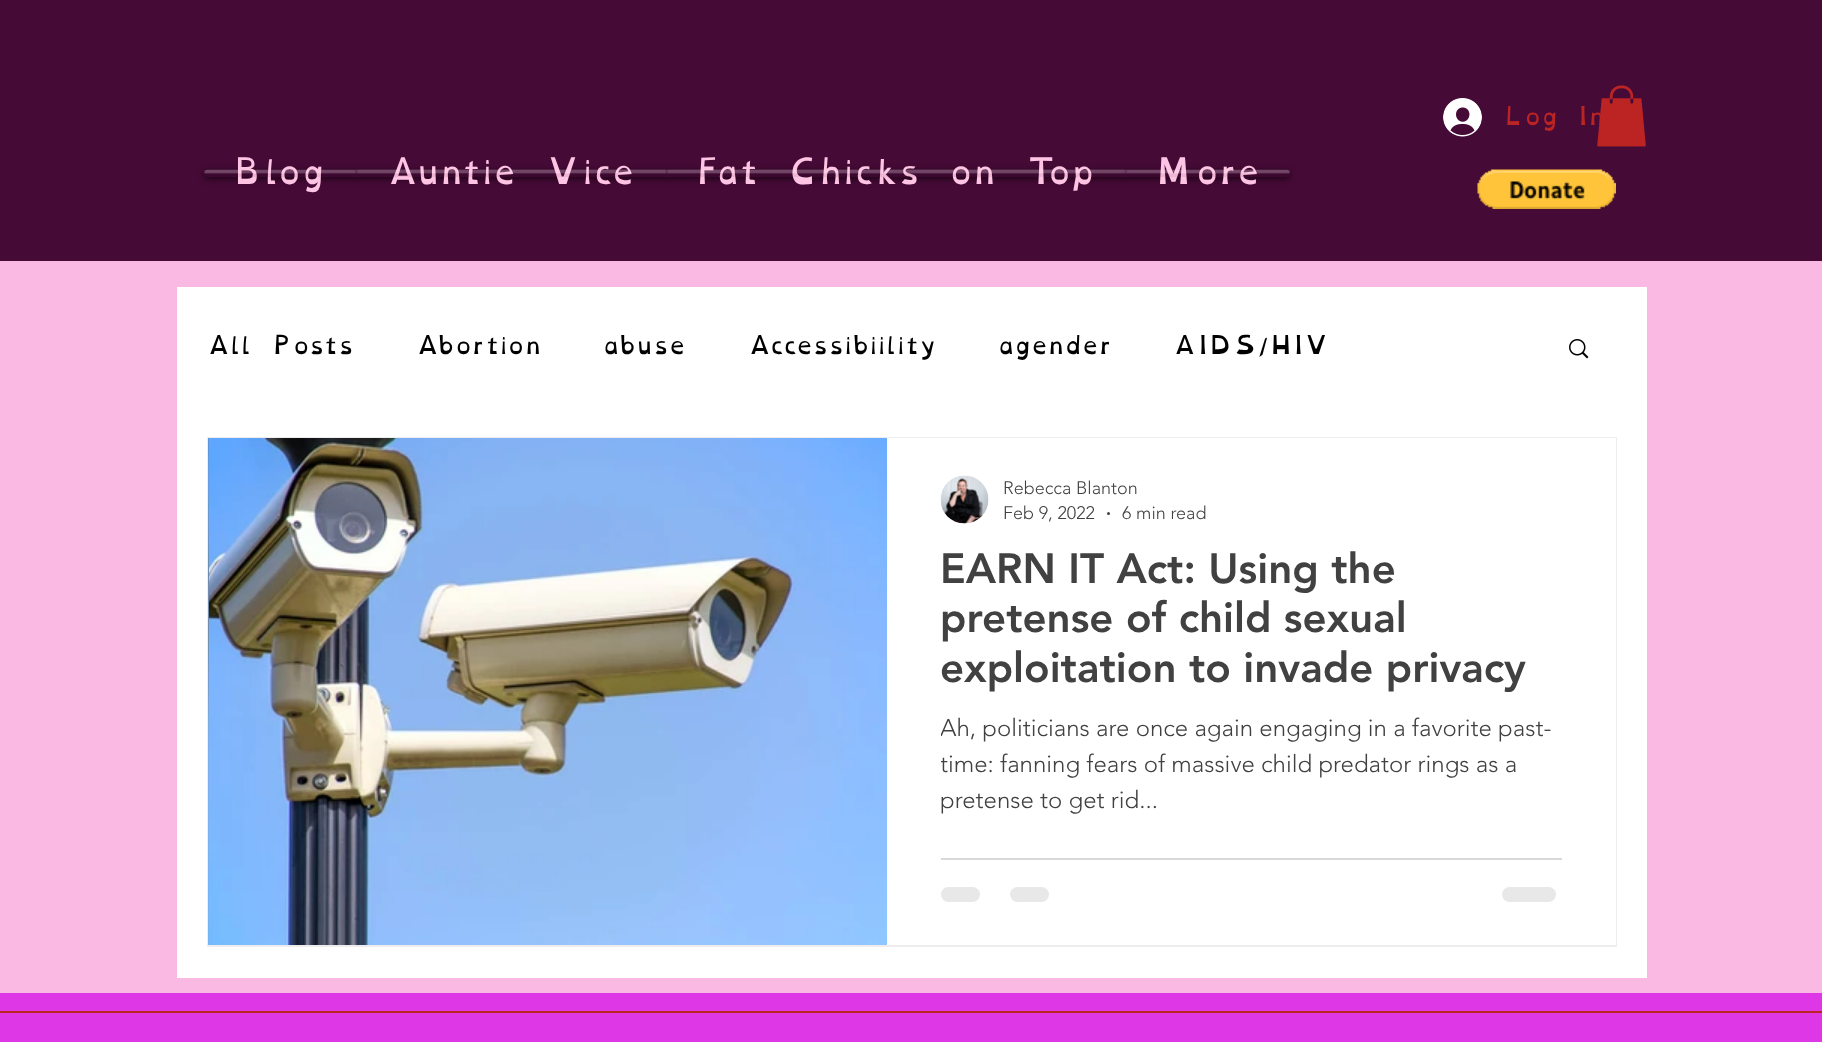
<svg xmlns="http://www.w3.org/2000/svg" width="1822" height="1042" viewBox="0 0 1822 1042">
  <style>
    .t1 { font: 22.5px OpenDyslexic; fill: #bb2423; }
    .t2 { font: 31.5px OpenDyslexic; fill: #ffc4e4; }
    .t3 { font: 22.5px OpenDyslexic; fill: #000; }
    .t4 { font: 300 18px 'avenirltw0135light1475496'; fill: #414141; }
    .t5 { font: 900 42px 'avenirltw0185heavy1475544'; fill: #414141; }
    .t6 { font: 300 24px 'avenirltw0135light1475496'; fill: #414141; }
  </style>
  <defs>
    <clipPath id="clip1"><path d="M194 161H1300V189H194ZM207.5 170H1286.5C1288.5 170 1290 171.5 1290 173.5C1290 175.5 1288.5 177 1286.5 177H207.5C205.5 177 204 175.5 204 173.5C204 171.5 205.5 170 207.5 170Z" clip-rule="evenodd"/></clipPath>
    <clipPath id="clip2"><rect x="941" y="711" width="621" height="108"/></clipPath>
  </defs>
  <rect width="100%" height="100%" fill="#f9b9e2"/>
  <rect x="0" y="0" width="1822" height="261" fill="#460a37"/>
  <image x="1443" y="98" width="39" height="39" href="images/1.png"/>
  <text x="1503" y="125" class="t1">Log In</text>
  <image x="1597" y="85" width="49" height="62" href="images/2.png"/>
  <g clip-path="url(#clip1)">
    <rect x="204" y="171" width="1086" height="8" rx="4" fill="#00000099" filter="blur(3px)"/>
  </g>
  <image x="204" y="169" width="1086" height="8" href="images/3.png"/>
  <text x="232" y="184" class="t2">Blog</text>
  <image x="204" y="169" width="152" height="8" href="images/4.png"/>
  <text x="385" y="184" class="t2">Auntie Vice</text>
  <image x="356" y="169" width="311" height="8" href="images/5.png"/>
  <text x="694" y="184" class="t2">Fat Chicks on Top</text>
  <image x="667" y="169" width="459" height="8" href="images/6.png"/>
  <text x="1154" y="184" class="t2">More</text>
  <image x="1126" y="169" width="164" height="8" href="images/7.png"/>
  <image x="1477" y="169" width="139" height="40" href="images/8.png"/>
  <rect x="177" y="287" width="1470" height="691" fill="#fff"/>
  <text x="206" y="354" class="t3">All Posts</text>
  <text x="415" y="354" class="t3">Abortion</text>
  <text x="602" y="354" class="t3">abuse</text>
  <text x="747" y="354" class="t3">Accessibiility</text>
  <text x="997" y="354" class="t3">agender</text>
  <text x="1172" y="354" class="t3">AIDS/HIV</text>
  <image x="1569" y="339" width="20" height="20" href="images/9.png"/>
  <rect x="208" y="438" width="1408" height="508" fill="none" stroke="#eeecec" stroke-width="2"/>
  <image x="208" y="438" width="1" height="507" href="images/10.png"/>
  <image x="209" y="438" width="678" height="507" href="images/11.png"/>
  <rect x="887" y="438" width="729" height="507" fill="#fff"/>
  <image x="940" y="475" width="49" height="49" href="images/12.png"/>
  <text x="1003" y="494" class="t4">Rebecca Blanton</text>
  <text x="1003" y="519" class="t4">Feb 9, 2022</text>
  <circle cx="1108.5" cy="513.5" r="1.5" fill="#414141"/>
  <text x="1122" y="519" class="t4">6 min read</text>
  <text x="940" y="583" class="t5">EARN IT Act: Using the</text>
  <text x="940" y="632" class="t5">pretense of child sexual</text>
  <text x="940" y="682" class="t5">exploitation to invade privacy</text>
  <g clip-path="url(#clip2)">
    <text x="940" y="736" class="t6">Ah, politicians are once again engaging in a favorite past-</text>
    <text x="940" y="772" class="t6">time: fanning fears of massive child predator rings as a</text>
  </g>
  <text x="940" y="808" class="t6">pretense to get rid...</text>
  <rect x="941" y="858" width="621" height="2" fill="#d9d9d9"/>
  <rect x="941" y="887" width="39" height="15" rx="7.5" fill="#e8e8e8"/>
  <rect x="1010" y="887" width="39" height="15" rx="7.5" fill="#e8e8e8"/>
  <rect x="1502" y="887" width="54" height="15" rx="7.5" fill="#e8e8e8"/>
  <rect x="0" y="993" width="1822" height="49" fill="#dd37e6"/>
  <rect x="0" y="1011" width="1822" height="2" fill="#bb2423"/>
</svg>
